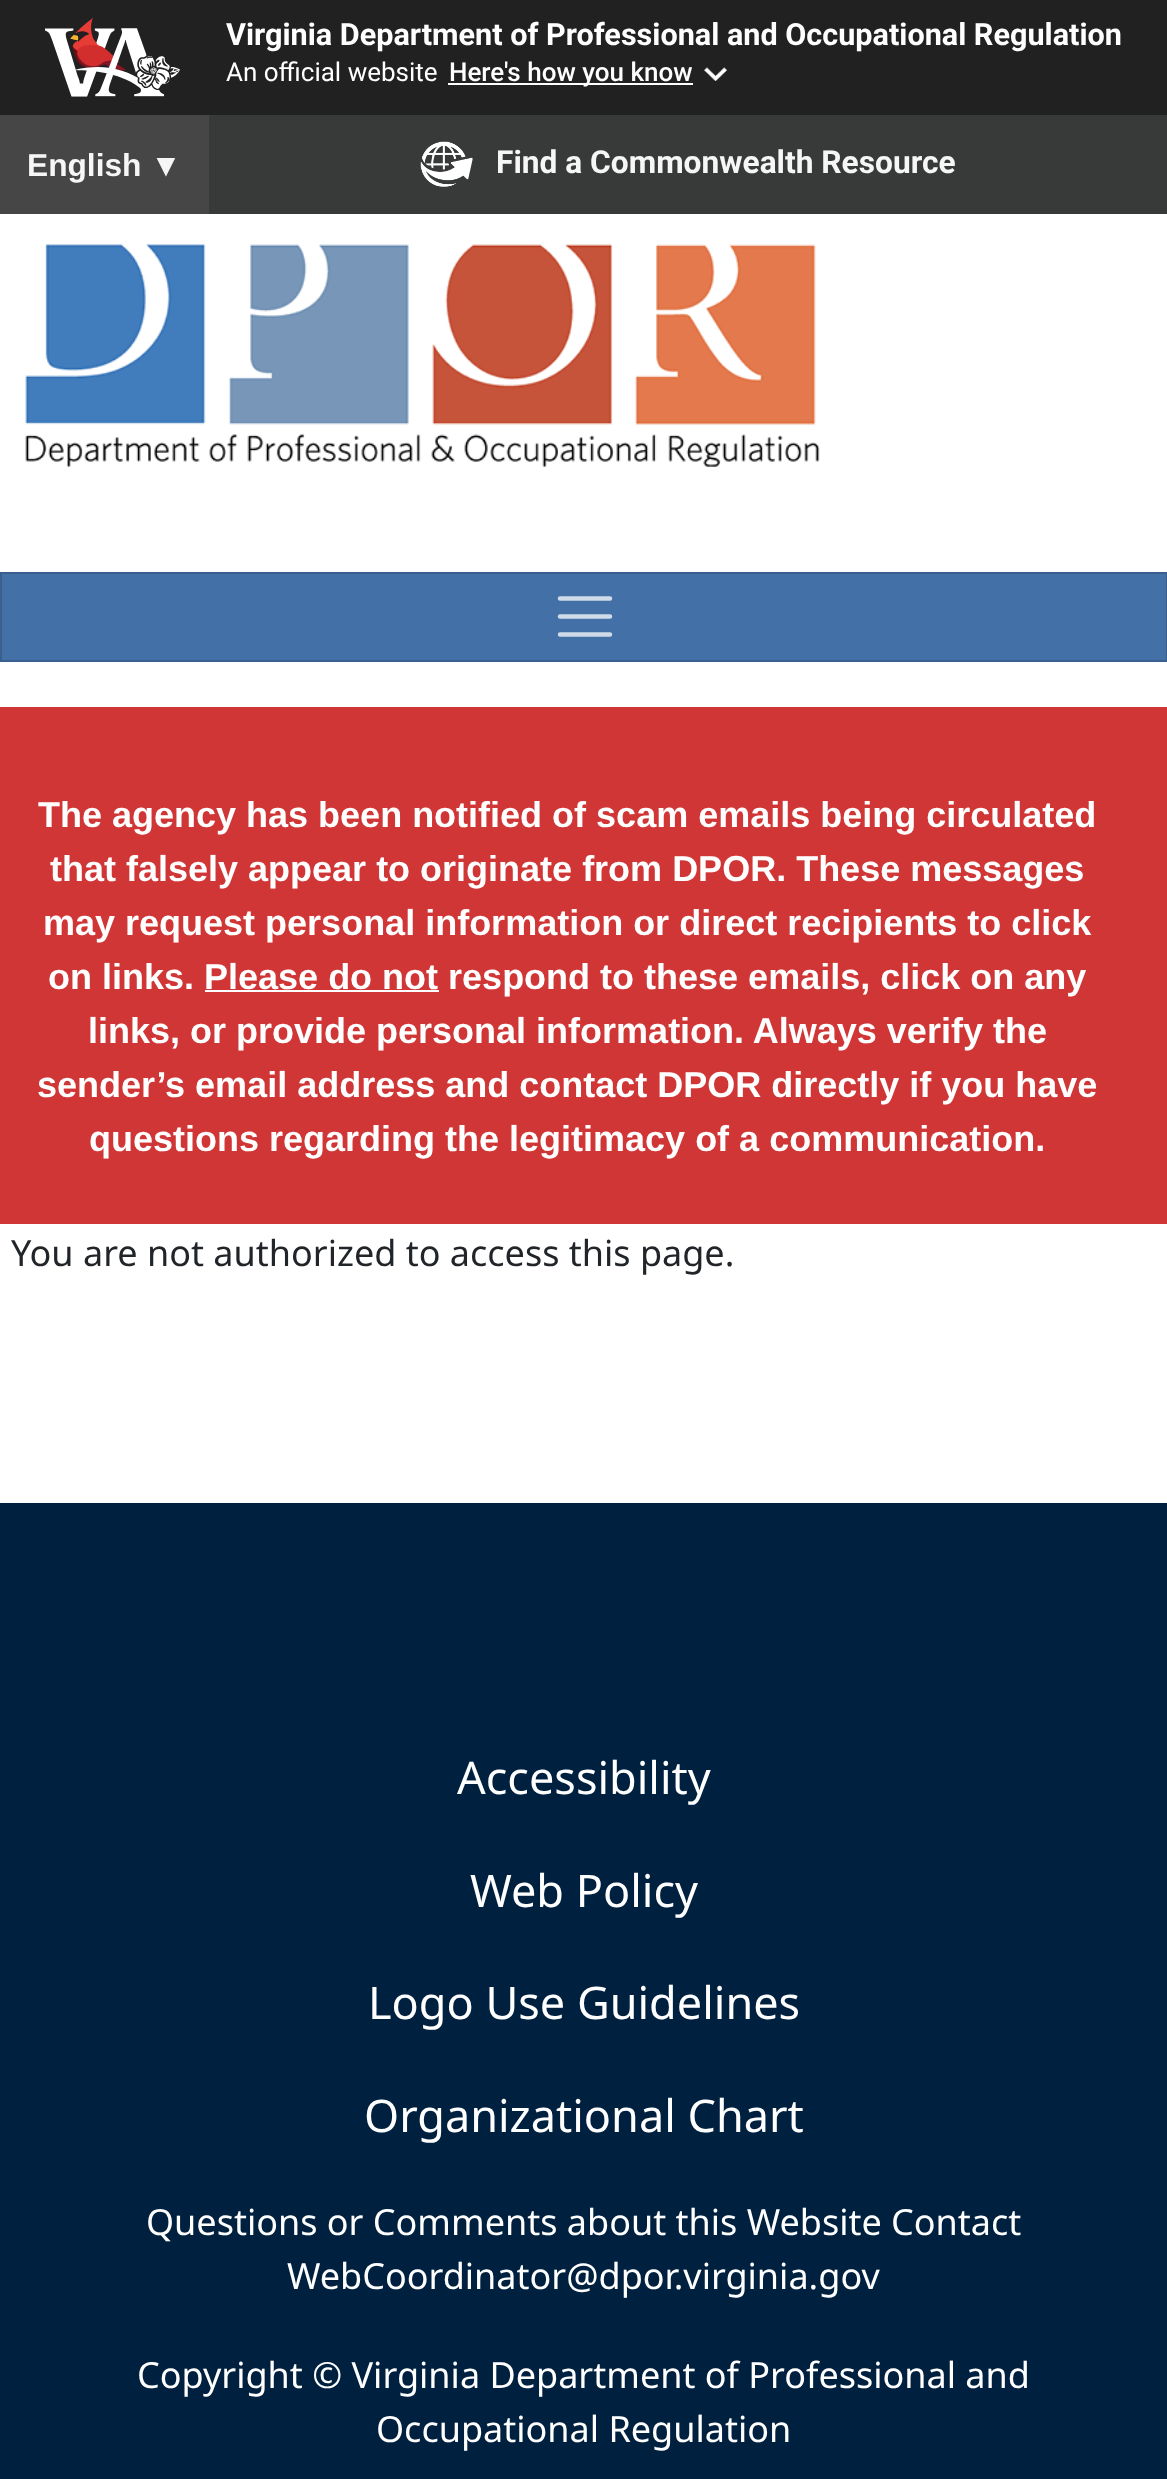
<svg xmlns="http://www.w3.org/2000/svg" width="1167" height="2479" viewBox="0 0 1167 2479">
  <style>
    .t1 { font: bold 30.6px Roboto; fill: #fff; }
    .t2 { font: 26px Roboto; fill: #fff; }
    .t3 { font: 500 26px Roboto; fill: #fff; }
    .t4 { font: bold 31.7px Liberation Sans; fill: #f6f6f6; }
    .t5 { font: bold 31.7px Roboto; fill: #f6f6f6; }
    .t6 { font: bold 36px Liberation Sans; fill: #fff; }
    .t7 { font: 36px Noto Sans; fill: #212529; }
    .t8 { font: 45px Noto Sans; fill: #fff; }
    .t9 { font: 36px Noto Sans; fill: #fff; }
  </style>
  <rect width="100%" height="100%" fill="#fff"/>
  <rect x="0" y="0" width="1167" height="115" fill="#212121"/>
  <image x="45" y="18" width="135" height="79" href="images/1.png"/>
  <text x="226" y="45" class="t1">Virginia Department of Professional and Occupational Regulation</text>
  <text x="226" y="81" class="t2">An official website</text>
  <rect x="448" y="83" width="245" height="2" fill="#fff"/>
  <text x="449" y="81" class="t3">Here's how you know</text>
  <image x="704" y="67" width="23" height="14" href="images/2.png"/>
  <rect x="0" y="115" width="209" height="99" fill="#464646"/>
  <text x="27" y="176" class="t4">English ▼</text>
  <rect x="209" y="115" width="958" height="99" fill="#383939"/>
  <image x="420" y="141" width="53" height="46" href="images/3.png"/>
  <text x="496" y="173" class="t5">Find a Commonwealth Resource</text>
  <image x="25" y="243" width="795" height="224" href="images/4.png"/>
  <rect x="1" y="573" width="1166" height="88" fill="#4370a7" stroke="#395f8e" stroke-width="2"/>
  <path d="M560 598.5H610M560 616.5H610M560 634.5H610" fill="none" stroke="#d0dbe9" stroke-width="4.5" stroke-linecap="round"/>
  <rect x="0" y="707" width="1167" height="517" fill="#d13636"/>
  <text x="38" y="827" class="t6">The agency has been notified of scam emails being circulated</text>
  <text x="50" y="881" class="t6">that falsely appear to originate from DPOR. These messages</text>
  <text x="43" y="935" class="t6">may request personal information or direct recipients to click</text>
  <text x="48" y="989" class="t6">on links. Please do not respond to these emails, click on any</text>
  <rect x="205" y="990" width="234" height="2" fill="#fff"/>
  <text x="88" y="1043" class="t6">links, or provide personal information. Always verify the</text>
  <text x="37" y="1097" class="t6">sender’s email address and contact DPOR directly if you have</text>
  <text x="89" y="1151" class="t6">questions regarding the legitimacy of a communication.</text>
  <text x="11" y="1266" class="t7">You are not authorized to access this page.</text>
  <rect x="0" y="1503" width="1167" height="976" fill="#00203f"/>
  <text x="457" y="1794" class="t8">Accessibility</text>
  <text x="470" y="1907" class="t8">Web Policy</text>
  <text x="368" y="2019" class="t8">Logo Use Guidelines</text>
  <text x="364" y="2132" class="t8">Organizational Chart</text>
  <text x="146" y="2235" class="t9">Questions or Comments about this Website Contact</text>
  <text x="287" y="2289" class="t9">WebCoordinator@dpor.virginia.gov</text>
  <text x="137" y="2388" class="t9">Copyright © Virginia Department of Professional and</text>
  <text x="376" y="2442" class="t9">Occupational Regulation</text>
</svg>
